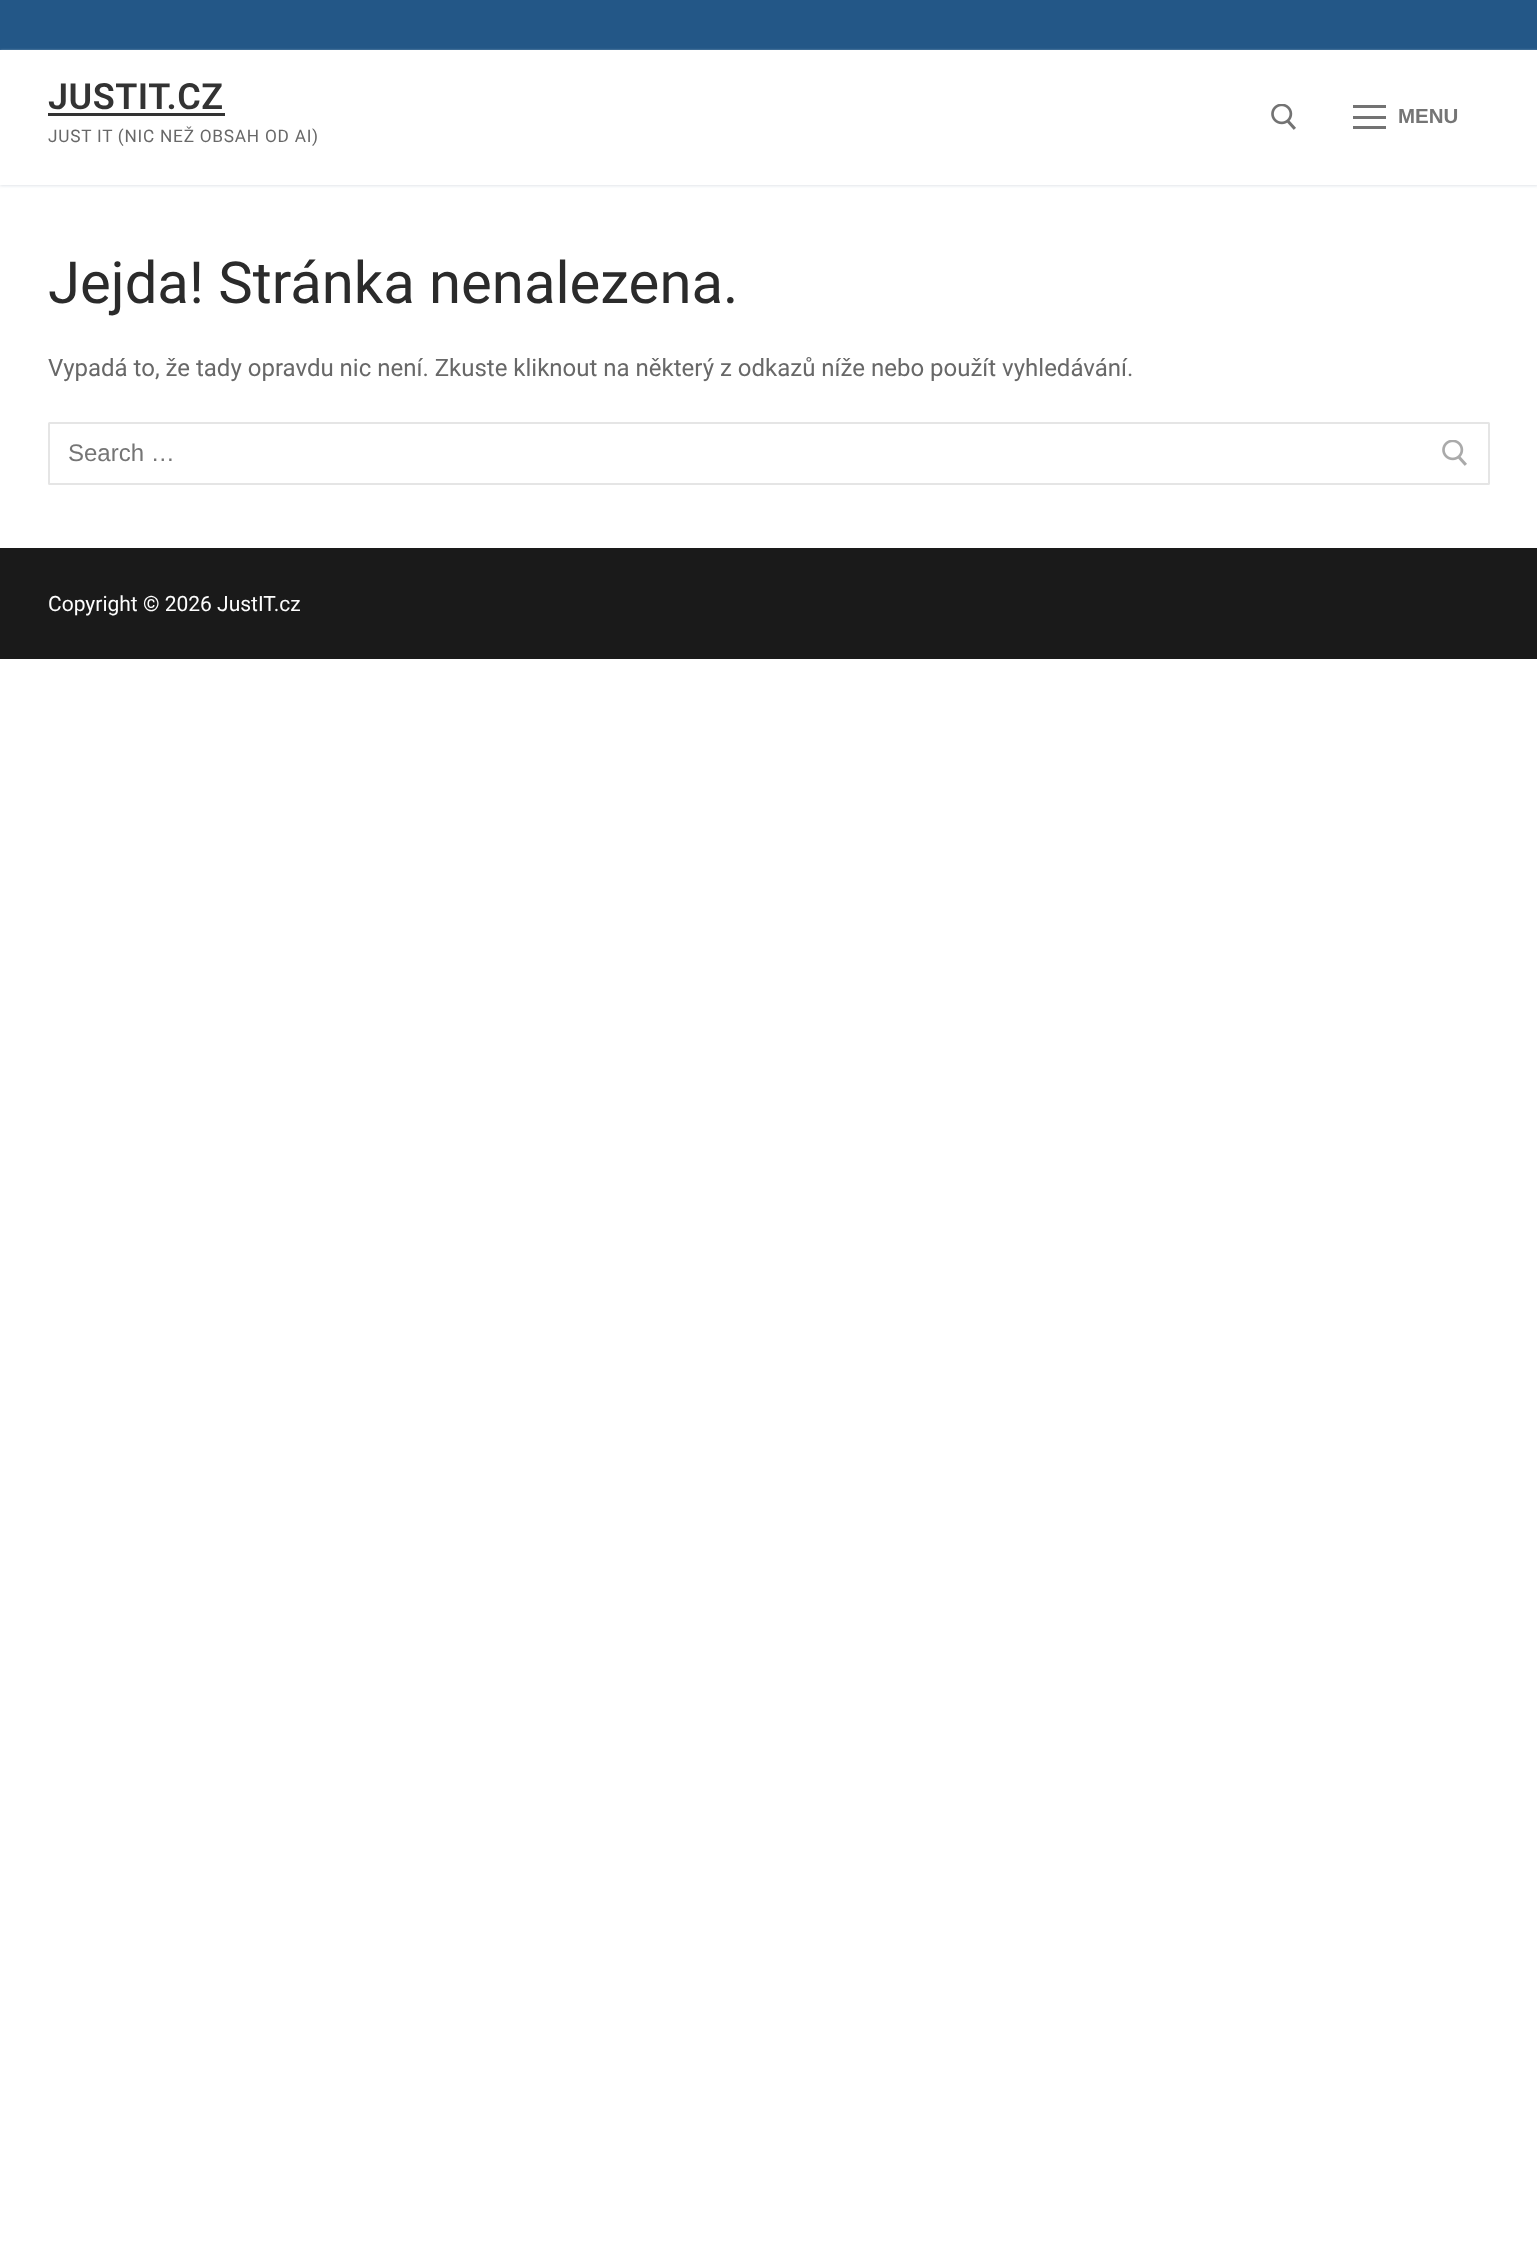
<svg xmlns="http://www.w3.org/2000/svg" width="1537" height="2254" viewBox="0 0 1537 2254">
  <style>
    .t1 { font: 600 36px Roboto; letter-spacing: 0.5px; fill: #333; }
    .t2 { font: 17.25px Roboto; letter-spacing: 0.75px; fill: #686868; }
    .t3 { font: bold 20.5px Liberation Sans; fill: #757575; }
    .t4 { font: 58px Roboto; fill: #2b2b2b; }
    .t5 { font: 24px Roboto; fill: #686868; }
    .t6 { font: 24px Liberation Sans; fill: #757575; }
    .t7 { font: 21px Roboto; fill: #fdfdfd; }
  </style>
  <rect width="100%" height="100%" fill="#fff"/>
  <rect x="0" y="0" width="1537" height="50" fill="#235787"/>
  <rect x="0" y="51" width="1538" height="135" fill="#e1e5ea" filter="blur(1.5px)"/>
  <rect x="0" y="50" width="1537" height="135" fill="#fff"/>
  <text x="48" y="109" class="t1">JUSTIT.CZ</text>
  <rect x="48" y="113" width="177" height="3" fill="#333"/>
  <text x="48" y="142" class="t2">JUST IT (NIC NEŽ OBSAH OD AI)</text>
  <image x="1271" y="104" width="25" height="26" href="images/1.png"/>
  <rect x="1353" y="116" width="33" height="3" fill="#737373"/>
  <rect x="1353" y="105" width="33" height="3" fill="#737373"/>
  <rect x="1353" y="126" width="33" height="3" fill="#737373"/>
  <text x="1398" y="123" class="t3">MENU</text>
  <text x="48" y="303" class="t4">Jejda! Stránka nenalezena.</text>
  <text x="48" y="376" class="t5">Vypadá to, že tady opravdu nic není. Zkuste kliknout na některý z odkazů níže nebo použít vyhledávání.</text>
  <rect x="49" y="423" width="1440" height="61" rx="0.5" fill="none" stroke="#e5e5e5" stroke-width="2"/>
  <text x="68" y="461" class="t6">Search …</text>
  <image x="1442" y="440" width="25" height="26" href="images/2.png"/>
  <rect x="0" y="548" width="1537" height="111" fill="#1a1a1a"/>
  <text x="48" y="611" class="t7">Copyright © 2026 JustIT.cz</text>
</svg>
